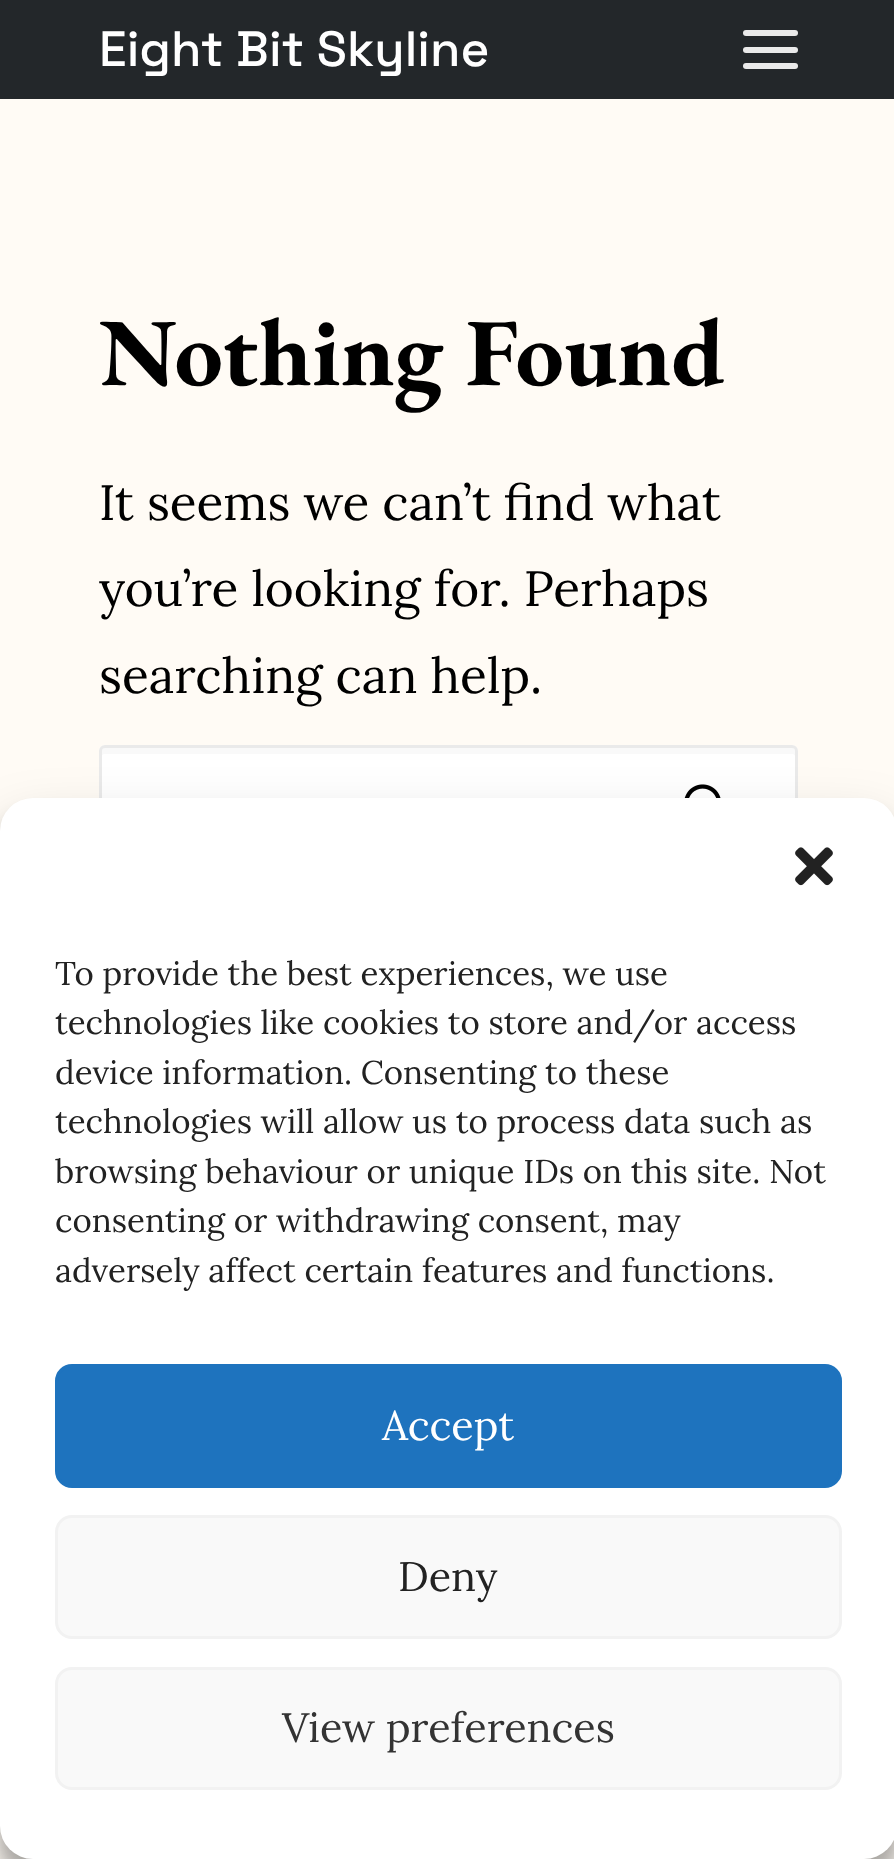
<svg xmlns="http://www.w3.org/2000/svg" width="894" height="1859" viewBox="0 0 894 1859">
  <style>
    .t1 { font: 500 49.5px Space Grotesk; fill: #fff; }
    .t2 { font: bold 96.25px EB Garamond; fill: #000; }
    .t3 { font: 49.5px Lora; fill: #000; }
    .t4 { font: 33px Lora; fill: #222; }
    .t5 { font: 41.25px Lora; fill: #fff; }
    .t6 { font: 41.25px Lora; fill: #222; }
    .t7 { font: 41.25px Lora; fill: #333; }
  </style>
  <rect width="100%" height="100%" fill="#fffbf5"/>
  <rect x="0" y="0" width="894" height="99" fill="#23272a"/>
  <text x="99" y="66" class="t1">Eight Bit Skyline</text>
  <rect x="743" y="47" width="55" height="6" rx="3" fill="#eaeaea"/>
  <rect x="743" y="30" width="55" height="6" rx="3" fill="#eaeaea"/>
  <rect x="743" y="63" width="55" height="6" rx="3" fill="#eaeaea"/>
  <text x="99" y="385" class="t2">Nothing Found</text>
  <text x="99" y="520" class="t3">It seems we can’t find what</text>
  <text x="99" y="606" class="t3">you’re looking for. Perhaps</text>
  <text x="99" y="693" class="t3">searching can help.</text>
  <rect x="99" y="745" width="699" height="124" rx="6" fill="#fff"/>
  <path d="M104 754H792C794 754 795 755 795 756V751C795 749 794 748 792 748H105C103 748 102 749 102 751V756C102 755 103 754 104 754Z" fill="#f9f9f9"/>
  <rect x="100.5" y="746.5" width="696" height="121" rx="4.5" fill="none" stroke="#eaeaea" stroke-width="3"/>
  <image x="684" y="784" width="37" height="14" href="images/1.png"/>
  <rect x="0" y="814" width="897" height="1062" rx="33" fill="#0000003b" filter="blur(8px)"/>
  <rect x="0" y="825" width="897" height="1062" rx="33" fill="#00000030" filter="blur(27.5px)"/>
  <rect x="0" y="798" width="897" height="1061" rx="33" fill="#fff"/>
  <image x="795" y="847" width="38" height="39" href="images/2.png"/>
  <text x="55" y="985" class="t4">To provide the best experiences, we use</text>
  <text x="55" y="1034" class="t4">technologies like cookies to store and/or access</text>
  <text x="55" y="1084" class="t4">device information. Consenting to these</text>
  <text x="55" y="1133" class="t4">technologies will allow us to process data such as</text>
  <text x="55" y="1183" class="t4">browsing behaviour or unique IDs on this site. Not</text>
  <text x="55" y="1232" class="t4">consenting or withdrawing consent, may</text>
  <text x="55" y="1282" class="t4">adversely affect certain features and functions.</text>
  <rect x="56.5" y="1365.5" width="784" height="121" rx="15.5" fill="#1e73be" stroke="#1e73be" stroke-width="3"/>
  <text x="382" y="1440" class="t5">Accept</text>
  <rect x="56.5" y="1516.5" width="784" height="121" rx="15.5" fill="#f9f9f9" stroke="#f2f2f2" stroke-width="3"/>
  <text x="398" y="1591" class="t6">Deny</text>
  <rect x="56.5" y="1668.5" width="784" height="120" rx="15.5" fill="#f9f9f9" stroke="#f2f2f2" stroke-width="3"/>
  <text x="282" y="1742" class="t7">View preferences</text>
</svg>
